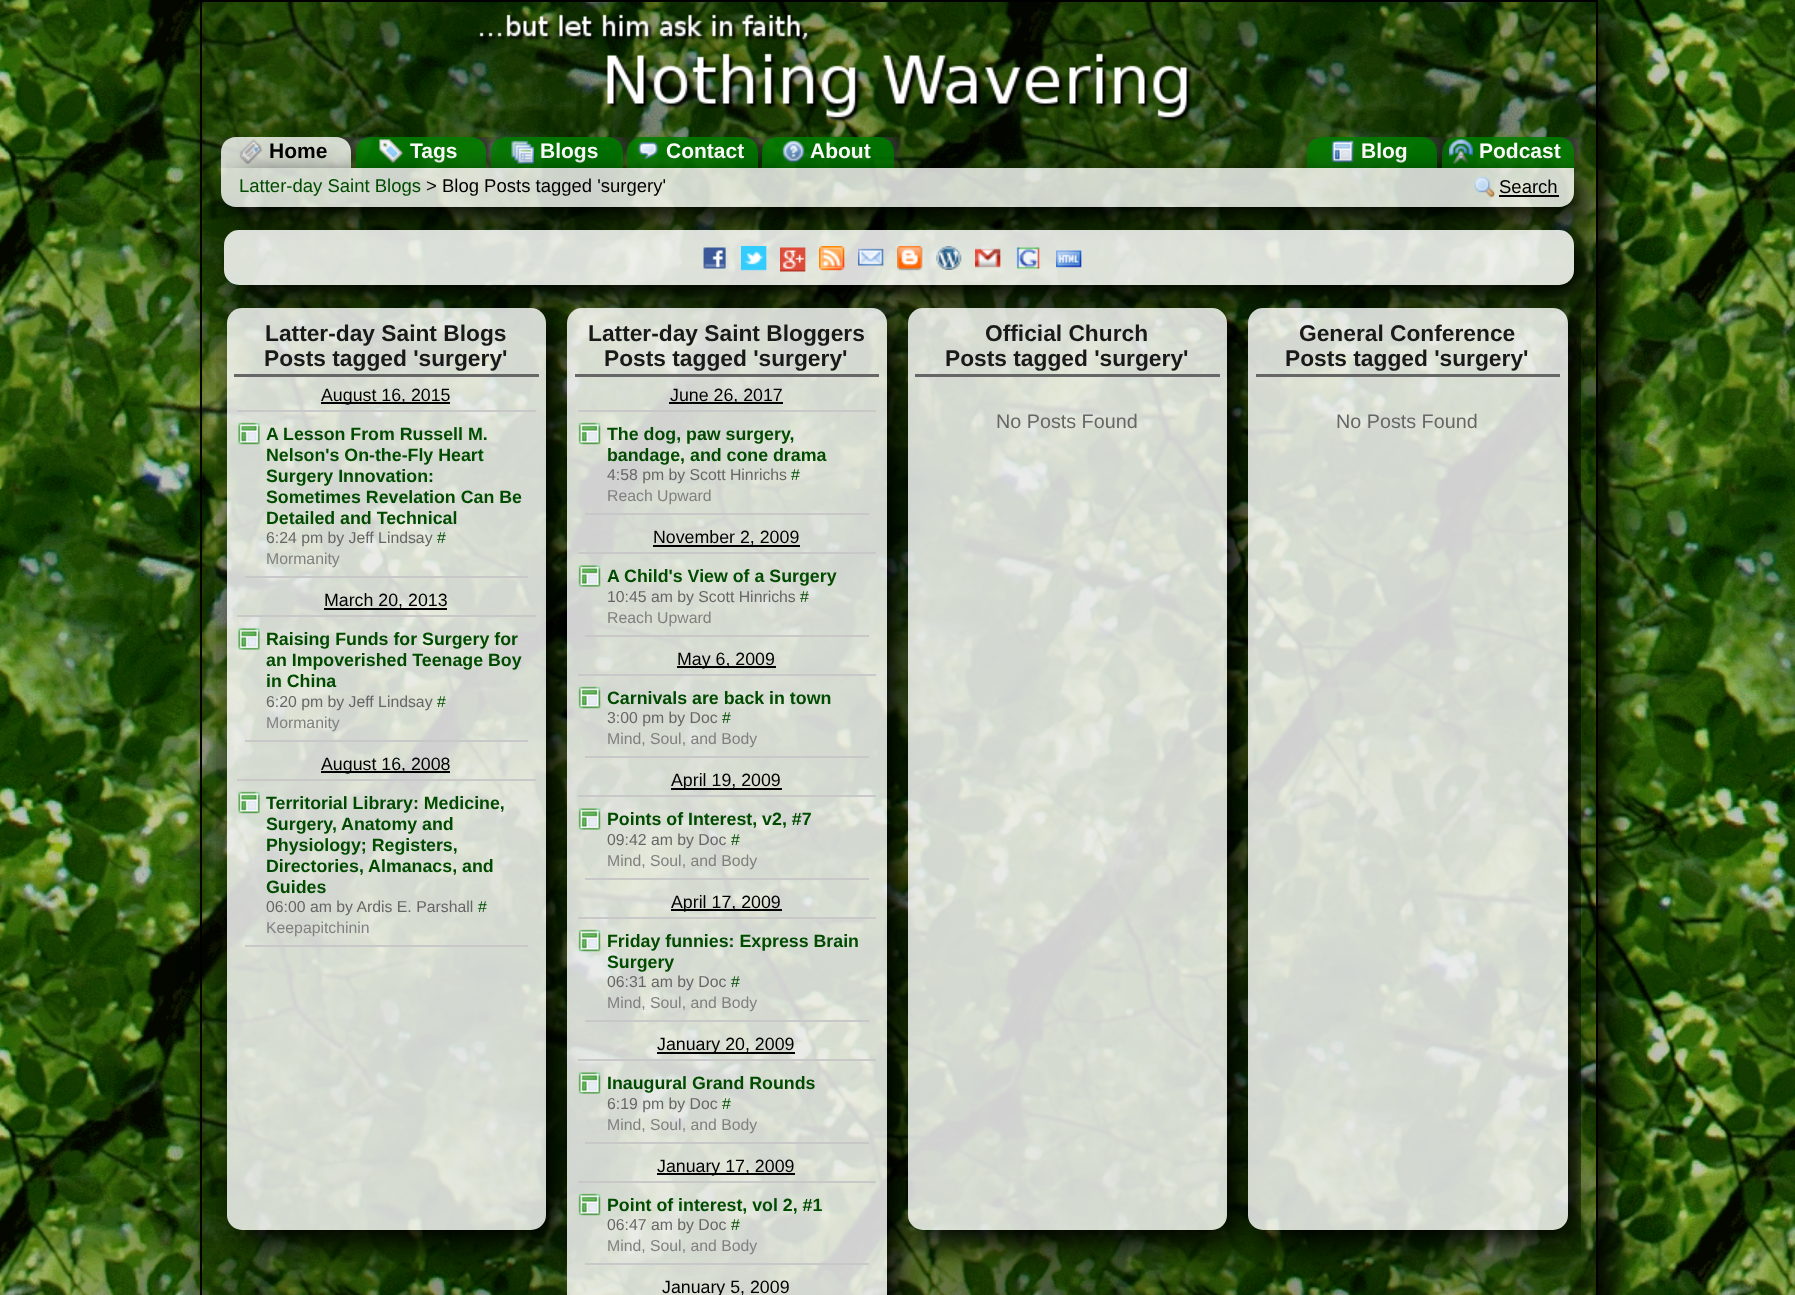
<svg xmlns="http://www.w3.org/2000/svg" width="1795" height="1295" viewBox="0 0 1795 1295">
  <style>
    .t1 { font: bold 21px Liberation Sans; fill: #000; }
    .t2 { font: bold 21px Liberation Sans; fill: #fff; }
    .t3 { font: 18.5px Liberation Sans; fill: #004b00; }
    .t4 { font: 18.5px Liberation Sans; fill: #000; }
    .t5 { font: bold 22.75px Liberation Sans; fill: #191919; }
    .t6 { font: 17.8px Liberation Sans; fill: #000; }
    .t7 { font: bold 17.8px Liberation Sans; fill: #004b00; }
    .t8 { font: 15.8px Liberation Sans; fill: #666; }
    .t9 { font: 15.8px Liberation Sans; fill: #004b00; }
    .t10 { font: 15.8px Liberation Sans; fill: #808080; }
    .t11 { font: 19.75px Liberation Sans; fill: #666; }
  </style>
  <defs>
    <clipPath id="clip1"><path d="M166 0H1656V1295H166ZM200 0H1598V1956H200Z" clip-rule="evenodd"/></clipPath>
    <clipPath id="clip2"><rect x="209" y="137" width="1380" height="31"/></clipPath>
    <clipPath id="clip3"><path d="M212 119H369V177H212ZM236 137H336C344.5 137 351 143.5 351 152V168H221V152C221 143.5 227.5 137 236 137Z" clip-rule="evenodd"/></clipPath>
    <clipPath id="clip4"><path d="M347 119H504V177H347ZM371 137H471C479.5 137 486 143.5 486 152V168H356V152C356 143.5 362.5 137 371 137Z" clip-rule="evenodd"/></clipPath>
    <clipPath id="clip5"><path d="M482 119H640V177H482ZM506 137H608C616.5 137 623 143.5 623 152V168H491V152C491 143.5 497.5 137 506 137Z" clip-rule="evenodd"/></clipPath>
    <clipPath id="clip6"><path d="M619 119H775V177H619ZM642 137H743C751.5 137 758 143.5 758 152V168H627V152C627 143.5 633.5 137 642 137Z" clip-rule="evenodd"/></clipPath>
    <clipPath id="clip7"><path d="M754 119H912V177H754ZM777 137H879C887.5 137 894 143.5 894 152V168H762V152C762 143.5 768.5 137 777 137Z" clip-rule="evenodd"/></clipPath>
    <clipPath id="clip8"><path d="M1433 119H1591V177H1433ZM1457 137H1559C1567.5 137 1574 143.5 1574 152V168H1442V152C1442 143.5 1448.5 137 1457 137Z" clip-rule="evenodd"/></clipPath>
    <clipPath id="clip9"><path d="M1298 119H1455V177H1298ZM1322 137H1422C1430.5 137 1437 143.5 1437 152V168H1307V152C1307 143.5 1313.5 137 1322 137Z" clip-rule="evenodd"/></clipPath>
    <clipPath id="clip10"><path d="M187 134H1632V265H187ZM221 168H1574V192C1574 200.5 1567.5 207 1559 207H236C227.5 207 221 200.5 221 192Z" clip-rule="evenodd"/></clipPath>
    <clipPath id="clip11"><path d="M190 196H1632V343H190ZM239 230H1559C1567.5 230 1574 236.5 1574 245V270C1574 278.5 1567.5 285 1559 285H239C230.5 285 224 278.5 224 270V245C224 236.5 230.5 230 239 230Z" clip-rule="evenodd"/></clipPath>
    <clipPath id="clip12"><rect x="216" y="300" width="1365" height="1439"/></clipPath>
    <clipPath id="clip13"><path d="M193 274H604V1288H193ZM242 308H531C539.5 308 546 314.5 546 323V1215C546 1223.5 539.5 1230 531 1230H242C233.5 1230 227 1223.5 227 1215V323C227 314.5 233.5 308 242 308Z" clip-rule="evenodd"/></clipPath>
    <clipPath id="clip14"><path d="M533 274H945V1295H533ZM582 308H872C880.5 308 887 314.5 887 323V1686C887 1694.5 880.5 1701 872 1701H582C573.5 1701 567 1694.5 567 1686V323C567 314.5 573.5 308 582 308Z" clip-rule="evenodd"/></clipPath>
    <clipPath id="clip15"><path d="M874 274H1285V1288H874ZM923 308H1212C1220.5 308 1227 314.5 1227 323V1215C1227 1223.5 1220.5 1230 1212 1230H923C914.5 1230 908 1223.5 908 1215V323C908 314.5 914.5 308 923 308Z" clip-rule="evenodd"/></clipPath>
    <clipPath id="clip16"><path d="M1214 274H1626V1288H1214ZM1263 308H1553C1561.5 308 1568 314.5 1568 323V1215C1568 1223.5 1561.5 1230 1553 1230H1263C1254.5 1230 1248 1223.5 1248 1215V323C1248 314.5 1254.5 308 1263 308Z" clip-rule="evenodd"/></clipPath>
  </defs>
  <rect width="100%" height="100%" fill="#fff"/>
  <image x="0" y="0" width="1795" height="1295" href="images/1.png"/>
  <g clip-path="url(#clip1)">
    <rect x="212" y="12" width="1398" height="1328" fill="#000" filter="blur(15px)"/>
  </g>
  <rect x="201" y="1" width="1396" height="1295" fill="#00000040" stroke="#000" stroke-width="2"/>
  <image x="479" y="14" width="713" height="109" href="images/2.png"/>
  <g clip-path="url(#clip2)">
    <g clip-path="url(#clip3)">
      <rect x="225" y="132" width="131" height="32" rx="15" fill="#333" filter="blur(4px)"/>
    </g>
  </g>
  <path d="M236 137H336C344.5 137 351 143.5 351 152V168H221V152C221 143.5 227.5 137 236 137Z" fill="#ffffffcc"/>
  <image x="239" y="139" width="24" height="25" href="images/3.png"/>
  <text x="269" y="158" class="t1">Home</text>
  <g clip-path="url(#clip2)">
    <g clip-path="url(#clip4)">
      <rect x="360" y="132" width="131" height="32" rx="15" fill="#333" filter="blur(4px)"/>
    </g>
  </g>
  <path d="M371 137H471C479.5 137 486 143.5 486 152V168H356V152C356 143.5 362.5 137 371 137Z" fill="#007e00d9"/>
  <image x="379" y="139" width="25" height="25" href="images/4.png"/>
  <text x="410" y="158" class="t2">Tags</text>
  <g clip-path="url(#clip2)">
    <g clip-path="url(#clip5)">
      <rect x="495" y="132" width="132" height="32" rx="15" fill="#333" filter="blur(4px)"/>
    </g>
  </g>
  <path d="M506 137H608C616.5 137 623 143.5 623 152V168H491V152C491 143.5 497.5 137 506 137Z" fill="#007e00d9"/>
  <image x="511" y="140" width="23" height="24" href="images/5.png"/>
  <text x="540" y="158" class="t2">Blogs</text>
  <g clip-path="url(#clip2)">
    <g clip-path="url(#clip6)">
      <rect x="632" y="132" width="130" height="32" rx="15" fill="#333" filter="blur(4px)"/>
    </g>
  </g>
  <path d="M642 137H743C751.5 137 758 143.5 758 152V168H627V152C627 143.5 633.5 137 642 137Z" fill="#007e00d9"/>
  <image x="637" y="142" width="22" height="18" href="images/6.png"/>
  <text x="666" y="158" class="t2">Contact</text>
  <g clip-path="url(#clip2)">
    <g clip-path="url(#clip7)">
      <rect x="767" y="132" width="132" height="32" rx="15" fill="#333" filter="blur(4px)"/>
    </g>
  </g>
  <path d="M777 137H879C887.5 137 894 143.5 894 152V168H762V152C762 143.5 768.5 137 777 137Z" fill="#007e00d9"/>
  <image x="782" y="140" width="23" height="23" href="images/7.png"/>
  <text x="810" y="158" class="t2">About</text>
  <g clip-path="url(#clip2)">
    <g clip-path="url(#clip8)">
      <rect x="1446" y="132" width="132" height="32" rx="15" fill="#333" filter="blur(4px)"/>
    </g>
  </g>
  <path d="M1457 137H1559C1567.5 137 1574 143.5 1574 152V168H1442V152C1442 143.5 1448.5 137 1457 137Z" fill="#007e00d9"/>
  <image x="1449" y="139" width="24" height="25" href="images/9.png"/>
  <g clip-path="url(#clip2)">
    <g clip-path="url(#clip9)">
      <rect x="1311" y="132" width="131" height="32" rx="15" fill="#333" filter="blur(4px)"/>
    </g>
  </g>
  <path d="M1322 137H1422C1430.5 137 1437 143.5 1437 152V168H1307V152C1307 143.5 1313.5 137 1322 137Z" fill="#007e00d9"/>
  <image x="1331" y="140" width="23" height="23" href="images/8.png"/>
  <text x="1361" y="158" class="t2">Blog</text>
  <text x="1479" y="158" class="t2">Podcast</text>
  <g clip-path="url(#clip10)">
    <rect x="233" y="180" width="1353" height="39" rx="15" fill="#000" filter="blur(15px)"/>
  </g>
  <path d="M221 168H1574V192C1574 200.5 1567.5 207 1559 207H236C227.5 207 221 200.5 221 192Z" fill="#ffffffcc"/>
  <text x="239" y="192" class="t3">Latter-day Saint Blogs</text>
  <text x="426" y="192" class="t4">&gt; Blog Posts tagged 'surgery'</text>
  <image x="1474" y="176" width="21" height="22" href="images/10.png"/>
  <text x="1499" y="193" class="t4">Search</text>
  <rect x="1499" y="195" width="60" height="2" fill="#000"/>
  <g clip-path="url(#clip11)">
    <rect x="236" y="242" width="1350" height="55" rx="15" fill="#000" filter="blur(15px)"/>
  </g>
  <rect x="224" y="230" width="1350" height="55" rx="15" fill="#ffffffd9"/>
  <image x="703" y="247" width="23" height="22" href="images/11.png"/>
  <image x="741" y="246" width="26" height="25" href="images/12.png"/>
  <image x="780" y="247" width="26" height="25" href="images/13.png"/>
  <image x="819" y="246" width="26" height="25" href="images/14.png"/>
  <image x="858" y="248" width="26" height="18" href="images/15.png"/>
  <image x="897" y="246" width="26" height="25" href="images/16.png"/>
  <image x="936" y="246" width="26" height="24" href="images/17.png"/>
  <image x="975" y="248" width="26" height="20" href="images/18.png"/>
  <image x="1016" y="247" width="24" height="22" href="images/19.png"/>
  <image x="1056" y="250" width="26" height="18" href="images/20.png"/>
  <g clip-path="url(#clip12)">
    <g clip-path="url(#clip13)">
      <rect x="239" y="320" width="319" height="922" rx="15" fill="#000" filter="blur(15px)"/>
    </g>
  </g>
  <rect x="227" y="308" width="319" height="922" rx="15" fill="#ffffffd1"/>
  <rect x="234" y="374" width="305" height="3" fill="#666"/>
  <text x="265" y="341" class="t5">Latter-day Saint Blogs</text>
  <text x="264" y="366" class="t5">Posts tagged 'surgery'</text>
  <rect x="237" y="410" width="299" height="2" fill="#c8c8c8"/>
  <rect x="321" y="402" width="129" height="2" fill="#000"/>
  <text x="321" y="401" class="t6">August 16, 2015</text>
  <rect x="245" y="576" width="283" height="2" fill="#c8c8c8"/>
  <image x="238" y="422" width="22" height="23" href="images/21.png"/>
  <text x="266" y="440" class="t7">A Lesson From Russell M.</text>
  <text x="266" y="461" class="t7">Nelson's On-the-Fly Heart</text>
  <text x="266" y="482" class="t7">Surgery Innovation:</text>
  <text x="266" y="503" class="t7">Sometimes Revelation Can Be</text>
  <text x="266" y="524" class="t7">Detailed and Technical</text>
  <text x="266" y="543" class="t8">6:24 pm by Jeff Lindsay</text>
  <text x="437" y="543" class="t9">#</text>
  <text x="266" y="564" class="t10">Mormanity</text>
  <rect x="237" y="615" width="299" height="2" fill="#c8c8c8"/>
  <rect x="324" y="608" width="123" height="2" fill="#000"/>
  <text x="324" y="606" class="t6">March 20, 2013</text>
  <rect x="245" y="740" width="283" height="2" fill="#c8c8c8"/>
  <image x="238" y="628" width="22" height="22" href="images/22.png"/>
  <text x="266" y="645" class="t7">Raising Funds for Surgery for</text>
  <text x="266" y="666" class="t7">an Impoverished Teenage Boy</text>
  <text x="266" y="687" class="t7">in China</text>
  <text x="266" y="707" class="t8">6:20 pm by Jeff Lindsay</text>
  <text x="437" y="707" class="t9">#</text>
  <text x="266" y="728" class="t10">Mormanity</text>
  <rect x="237" y="779" width="299" height="2" fill="#c8c8c8"/>
  <rect x="321" y="771" width="129" height="2" fill="#000"/>
  <text x="321" y="770" class="t6">August 16, 2008</text>
  <rect x="245" y="945" width="283" height="2" fill="#c8c8c8"/>
  <image x="238" y="791" width="22" height="23" href="images/23.png"/>
  <text x="266" y="809" class="t7">Territorial Library: Medicine,</text>
  <text x="266" y="830" class="t7">Surgery, Anatomy and</text>
  <text x="266" y="851" class="t7">Physiology; Registers,</text>
  <text x="266" y="872" class="t7">Directories, Almanacs, and</text>
  <text x="266" y="893" class="t7">Guides</text>
  <text x="266" y="912" class="t8">06:00 am by Ardis E. Parshall</text>
  <text x="478" y="912" class="t9">#</text>
  <text x="266" y="933" class="t10">Keepapitchinin</text>
  <g clip-path="url(#clip12)">
    <g clip-path="url(#clip14)">
      <rect x="579" y="320" width="320" height="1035" rx="15" fill="#000" filter="blur(15px)"/>
    </g>
  </g>
  <rect x="567" y="308" width="320" height="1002" rx="15" fill="#ffffffd1"/>
  <rect x="575" y="374" width="304" height="3" fill="#666"/>
  <text x="588" y="341" class="t5">Latter-day Saint Bloggers</text>
  <text x="604" y="366" class="t5">Posts tagged 'surgery'</text>
  <rect x="578" y="410" width="298" height="2" fill="#c8c8c8"/>
  <rect x="669" y="402" width="114" height="2" fill="#000"/>
  <text x="670" y="401" class="t6">June 26, 2017</text>
  <rect x="585" y="513" width="284" height="2" fill="#c8c8c8"/>
  <image x="578" y="422" width="23" height="23" href="images/24.png"/>
  <text x="607" y="440" class="t7">The dog, paw surgery,</text>
  <text x="607" y="461" class="t7">bandage, and cone drama</text>
  <text x="607" y="480" class="t8">4:58 pm by Scott Hinrichs</text>
  <text x="791" y="480" class="t9">#</text>
  <text x="607" y="501" class="t10">Reach Upward</text>
  <rect x="578" y="552" width="298" height="2" fill="#c8c8c8"/>
  <rect x="653" y="545" width="147" height="2" fill="#000"/>
  <text x="653" y="543" class="t6">November 2, 2009</text>
  <rect x="585" y="635" width="284" height="2" fill="#c8c8c8"/>
  <image x="578" y="565" width="23" height="22" href="images/25.png"/>
  <text x="607" y="582" class="t7">A Child's View of a Surgery</text>
  <text x="607" y="602" class="t8">10:45 am by Scott Hinrichs</text>
  <text x="800" y="602" class="t9">#</text>
  <text x="607" y="623" class="t10">Reach Upward</text>
  <rect x="578" y="674" width="298" height="2" fill="#c8c8c8"/>
  <rect x="677" y="666" width="99" height="2" fill="#000"/>
  <text x="677" y="665" class="t6">May 6, 2009</text>
  <rect x="585" y="756" width="284" height="2" fill="#c8c8c8"/>
  <image x="578" y="686" width="23" height="23" href="images/26.png"/>
  <text x="607" y="704" class="t7">Carnivals are back in town</text>
  <text x="607" y="723" class="t8">3:00 pm by Doc</text>
  <text x="722" y="723" class="t9">#</text>
  <text x="607" y="744" class="t10">Mind, Soul, and Body</text>
  <rect x="578" y="795" width="298" height="2" fill="#c8c8c8"/>
  <rect x="671" y="788" width="111" height="2" fill="#000"/>
  <text x="671" y="786" class="t6">April 19, 2009</text>
  <rect x="585" y="878" width="284" height="2" fill="#c8c8c8"/>
  <image x="578" y="808" width="23" height="22" href="images/27.png"/>
  <text x="607" y="825" class="t7">Points of Interest, v2, #7</text>
  <text x="607" y="845" class="t8">09:42 am by Doc</text>
  <text x="731" y="845" class="t9">#</text>
  <text x="607" y="866" class="t10">Mind, Soul, and Body</text>
  <rect x="578" y="917" width="298" height="2" fill="#c8c8c8"/>
  <rect x="671" y="909" width="111" height="2" fill="#000"/>
  <text x="671" y="908" class="t6">April 17, 2009</text>
  <rect x="585" y="1020" width="284" height="2" fill="#c8c8c8"/>
  <image x="578" y="929" width="23" height="23" href="images/28.png"/>
  <text x="607" y="947" class="t7">Friday funnies: Express Brain</text>
  <text x="607" y="968" class="t7">Surgery</text>
  <text x="607" y="987" class="t8">06:31 am by Doc</text>
  <text x="731" y="987" class="t9">#</text>
  <text x="607" y="1008" class="t10">Mind, Soul, and Body</text>
  <rect x="578" y="1059" width="298" height="2" fill="#c8c8c8"/>
  <rect x="657" y="1052" width="138" height="2" fill="#000"/>
  <text x="657" y="1050" class="t6">January 20, 2009</text>
  <rect x="585" y="1142" width="284" height="2" fill="#c8c8c8"/>
  <image x="578" y="1072" width="23" height="22" href="images/29.png"/>
  <text x="607" y="1089" class="t7">Inaugural Grand Rounds</text>
  <text x="607" y="1109" class="t8">6:19 pm by Doc</text>
  <text x="722" y="1109" class="t9">#</text>
  <text x="607" y="1130" class="t10">Mind, Soul, and Body</text>
  <rect x="578" y="1181" width="298" height="2" fill="#c8c8c8"/>
  <rect x="657" y="1173" width="138" height="2" fill="#000"/>
  <text x="657" y="1172" class="t6">January 17, 2009</text>
  <rect x="585" y="1263" width="284" height="2" fill="#c8c8c8"/>
  <image x="578" y="1193" width="23" height="23" href="images/30.png"/>
  <text x="607" y="1211" class="t7">Point of interest, vol 2, #1</text>
  <text x="607" y="1230" class="t8">06:47 am by Doc</text>
  <text x="731" y="1230" class="t9">#</text>
  <text x="607" y="1251" class="t10">Mind, Soul, and Body</text>
  <text x="662" y="1293" class="t6">January 5, 2009</text>
  <g clip-path="url(#clip12)">
    <g clip-path="url(#clip15)">
      <rect x="920" y="320" width="319" height="922" rx="15" fill="#000" filter="blur(15px)"/>
    </g>
  </g>
  <rect x="908" y="308" width="319" height="922" rx="15" fill="#ffffffd1"/>
  <rect x="915" y="374" width="305" height="3" fill="#666"/>
  <text x="985" y="341" class="t5">Official Church</text>
  <text x="945" y="366" class="t5">Posts tagged 'surgery'</text>
  <text x="996" y="428" class="t11">No Posts Found</text>
  <g clip-path="url(#clip12)">
    <g clip-path="url(#clip16)">
      <rect x="1260" y="320" width="320" height="922" rx="15" fill="#000" filter="blur(15px)"/>
    </g>
  </g>
  <rect x="1248" y="308" width="320" height="922" rx="15" fill="#ffffffd1"/>
  <rect x="1256" y="374" width="304" height="3" fill="#666"/>
  <text x="1299" y="341" class="t5">General Conference</text>
  <text x="1285" y="366" class="t5">Posts tagged 'surgery'</text>
  <text x="1336" y="428" class="t11">No Posts Found</text>
</svg>
